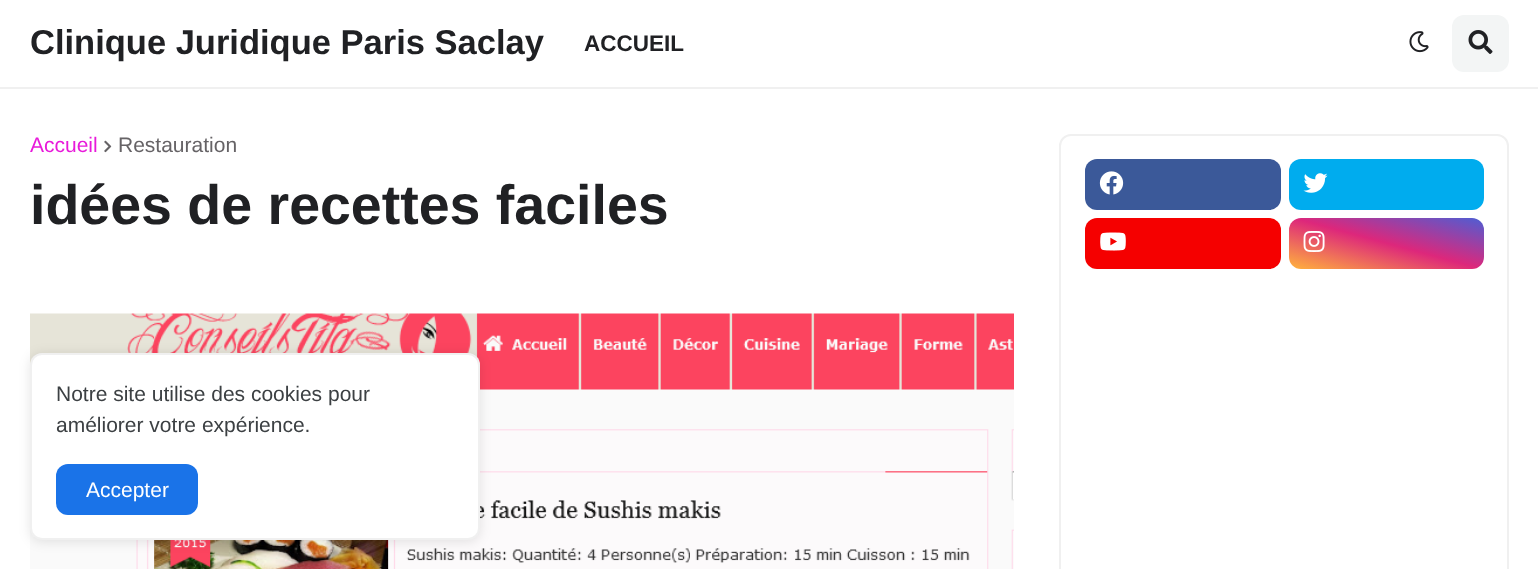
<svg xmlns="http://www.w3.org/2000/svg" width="1538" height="569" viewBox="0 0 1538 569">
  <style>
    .t1 { font: bold 34.5px Liberation Sans; fill: #202124; }
    .t2 { font: bold 22.5px Liberation Sans; fill: #202124; }
    .t3 { font: 21px Liberation Sans; fill: #e81ada; }
    .t4 { font: 21px Liberation Sans; fill: #666366; }
    .t5 { font: bold 55.5px Liberation Sans; fill: #202124; }
    .t6 { font: 21px Liberation Sans; fill: #3c4043; }
    .t7 { font: 21px Liberation Sans; fill: #fff; }
  </style>
  <defs>
    <linearGradient id="g1" gradientUnits="userSpaceOnUse" x1="1373" y1="291" x2="1399" y2="195"><stop offset="0" stop-color="#ffb13d"/><stop offset="0.5" stop-color="#dd277b"/><stop offset="1" stop-color="#4d5ed4"/></linearGradient>
  </defs>
  <rect width="100%" height="100%" fill="#fff"/>
  <rect x="0" y="87" width="1538" height="2" fill="#f0f0f0"/>
  <text x="30" y="54" class="t1">Clinique Juridique Paris Saclay</text>
  <text x="584" y="51" class="t2">ACCUEIL</text>
  <image x="1409" y="31" width="20" height="22" href="images/1.png"/>
  <rect x="1452" y="15" width="57" height="57" rx="12" fill="#f3f5f5"/>
  <image x="1468" y="30" width="25" height="24" href="images/2.png"/>
  <text x="30" y="152" class="t3">Accueil</text>
  <image x="104" y="140" width="8" height="13" href="images/3.png"/>
  <text x="118" y="152" class="t4">Restauration</text>
  <text x="30" y="224" class="t5">idées de recettes faciles</text>
  <image x="30" y="313" width="984" height="256" href="images/4.png"/>
  <rect x="1060" y="135" width="448" height="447" rx="11" fill="none" stroke="#f0f0f0" stroke-width="2"/>
  <rect x="1085" y="159" width="196" height="51" rx="12" fill="#3b5999"/>
  <image x="1099" y="171" width="25" height="24" href="images/5.png"/>
  <rect x="1289" y="159" width="195" height="51" rx="12" fill="#00acee"/>
  <image x="1303" y="173" width="25" height="20" href="images/6.png"/>
  <rect x="1085" y="218" width="196" height="51" rx="12" fill="#f50000"/>
  <image x="1100" y="232" width="26" height="19" href="images/7.png"/>
  <rect x="1289" y="218" width="195" height="51" rx="12" fill="url(#g1)"/>
  <image x="1303" y="231" width="22" height="21" href="images/8.png"/>
  <rect x="30" y="354" width="450" height="188" rx="12" fill="#0000001a" filter="blur(6px)"/>
  <rect x="30" y="353" width="450" height="187" rx="12" fill="#fff"/>
  <rect x="31" y="354" width="448" height="185" rx="11" fill="none" stroke="#9b9b9b26" stroke-width="2"/>
  <text x="56" y="401" class="t6">Notre site utilise des cookies pour</text>
  <text x="56" y="432" class="t6">améliorer votre expérience.</text>
  <rect x="56" y="464" width="142" height="51" rx="12" fill="#1a73e8"/>
  <text x="86" y="497" class="t7">Accepter</text>
</svg>
